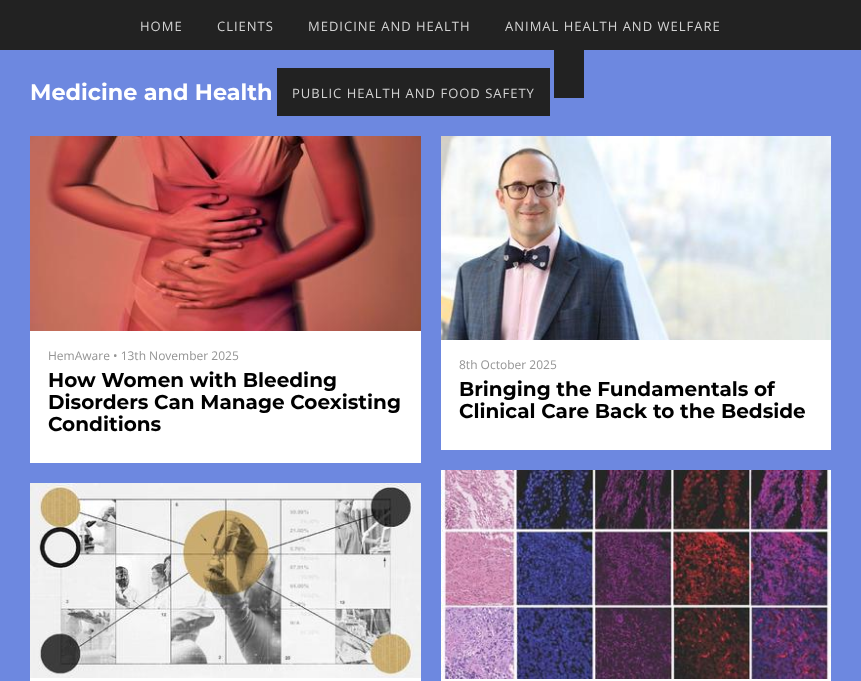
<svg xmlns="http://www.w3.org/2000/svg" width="861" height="681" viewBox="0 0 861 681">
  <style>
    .t1 { font: 13px Open Sans; letter-spacing: 1px; fill: #d3d3d3; }
    .t2 { font: 100 22.4px Montserrat; fill: #fff; }
    .t3 { font: 12px Open Sans; fill: #949494; }
    .t4 { font: 100 20px Montserrat; fill: #000; }
  </style>
  <rect width="100%" height="100%" fill="#6d88e0"/>
  <rect x="0" y="0" width="861" height="50" fill="#222"/>
  <text x="140" y="31" class="t1">HOME</text>
  <text x="217" y="31" class="t1">CLIENTS</text>
  <text x="308" y="31" class="t1">MEDICINE AND HEALTH</text>
  <text x="505" y="31" class="t1">ANIMAL HEALTH AND WELFARE</text>
  <rect x="277" y="68" width="273" height="48" fill="#222"/>
  <text x="292" y="98" class="t1">PUBLIC HEALTH AND FOOD SAFETY</text>
  <rect x="554" y="50" width="30" height="48" fill="#222"/>
  <text x="30" y="100" class="t2">Medicine and Health</text>
  <rect x="30" y="331" width="391" height="132" fill="#fff"/>
  <image x="30" y="136" width="391" height="195" href="images/1.png"/>
  <text x="48" y="360" class="t3">HemAware • 13th November 2025</text>
  <text x="48" y="387" class="t4">How Women with Bleeding</text>
  <text x="48" y="409" class="t4">Disorders Can Manage Coexisting</text>
  <text x="48" y="431" class="t4">Conditions</text>
  <rect x="441" y="340" width="390" height="110" fill="#fff"/>
  <image x="441" y="136" width="390" height="204" href="images/2.png"/>
  <text x="459" y="369" class="t3">8th October 2025</text>
  <text x="459" y="396" class="t4">Bringing the Fundamentals of</text>
  <text x="459" y="418" class="t4">Clinical Care Back to the Bedside</text>
  <rect x="30" y="678" width="391" height="3" fill="#fff"/>
  <image x="30" y="483" width="391" height="195" href="images/3.png"/>
  <rect x="441" y="679" width="390" height="2" fill="#fff"/>
  <image x="441" y="470" width="390" height="209" href="images/4.png"/>
</svg>
